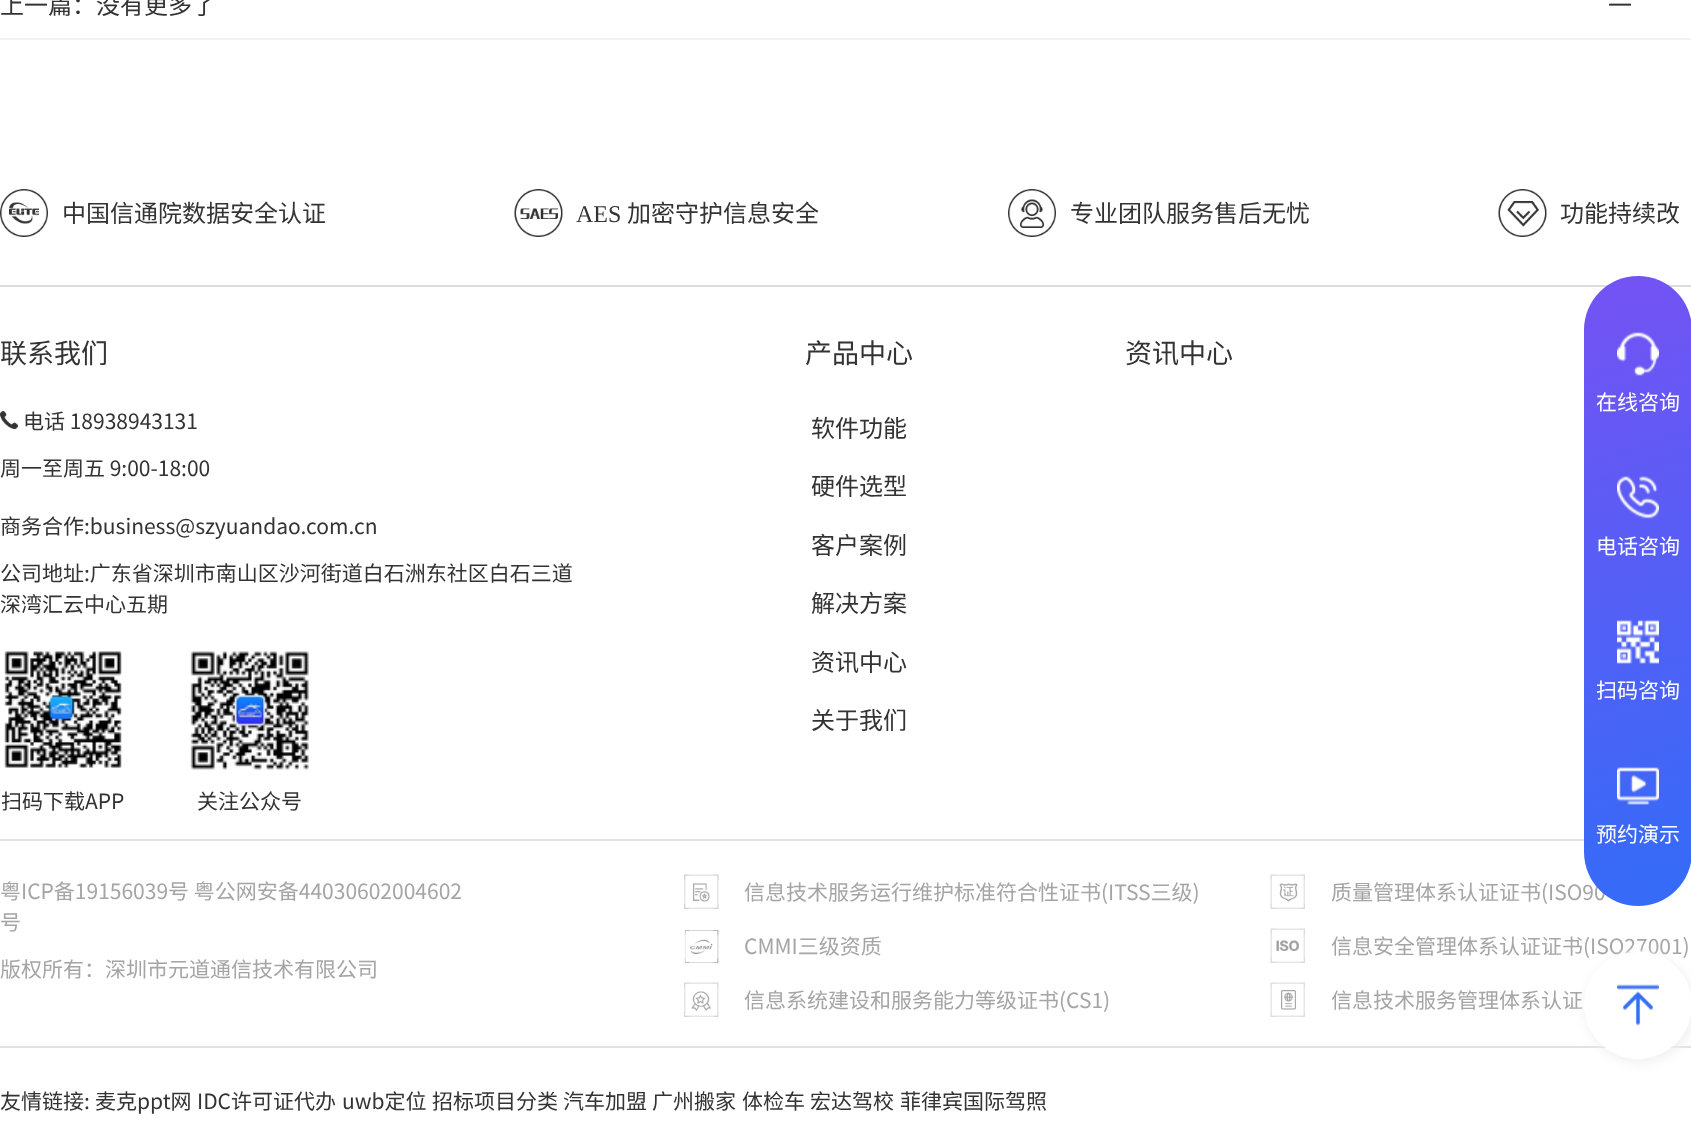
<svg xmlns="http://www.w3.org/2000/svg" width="1691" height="1148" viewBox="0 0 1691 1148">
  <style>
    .t1 { font: 24px Noto Sans CJK SC; fill: #333; }
    .t2 { font: 24px Liberation Serif; fill: #333; }
    .t3 { font: 27px Noto Sans CJK SC; fill: #333; }
    .t4 { font: 21px Noto Sans CJK SC; fill: #333; }
    .t5 { font: 21px Noto Sans CJK SC; fill: #a5a5a5; }
    .t6 { font: 21px Noto Sans CJK SC; fill: #fff; }
  </style>
  <defs>
    <linearGradient id="g1" gradientUnits="userSpaceOnUse" x1="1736" y1="892" x2="1540" y2="290"><stop offset="0" stop-color="#336cf8"/><stop offset="1" stop-color="#7552f3"/></linearGradient>
    <clipPath id="clip1"><path d="M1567 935H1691V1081H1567ZM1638 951C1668 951 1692 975 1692 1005C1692 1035 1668 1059 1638 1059C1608 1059 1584 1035 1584 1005C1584 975 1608 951 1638 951Z" clip-rule="evenodd"/></clipPath>
  </defs>
  <rect width="100%" height="100%" fill="#fff"/>
  <rect x="0" y="38" width="1691" height="2" fill="#f2f2f2"/>
  <text x="0" y="14" class="t1">上一篇：没有更多了</text>
  <text x="1608" y="14" class="t1">一</text>
  <rect x="0" y="285" width="1691" height="2" fill="#ddd"/>
  <image x="0" y="189" width="48" height="48" href="images/1.png"/>
  <text x="62" y="222" class="t1">中国信通院数据安全认证</text>
  <image x="514" y="189" width="49" height="48" href="images/2.png"/>
  <text x="576" y="222" class="t2">AES</text>
  <text x="627" y="222" class="t1">加密守护信息安全</text>
  <image x="1008" y="189" width="48" height="48" href="images/3.png"/>
  <text x="1070" y="222" class="t1">专业团队服务售后无忧</text>
  <image x="1498" y="189" width="49" height="48" href="images/4.png"/>
  <text x="1560" y="222" class="t1">功能持续改</text>
  <rect x="0" y="839" width="1584" height="2" fill="#e2e2e2"/>
  <text x="0" y="363" class="t3">联系我们</text>
  <image x="0" y="411" width="18" height="18" href="images/5.png"/>
  <text x="23" y="429" class="t4">电话 18938943131</text>
  <text x="0" y="476" class="t4">周一至周五 9:00-18:00</text>
  <text x="0" y="534" class="t4">商务合作:business@szyuandao.com.cn</text>
  <text x="0" y="581" class="t4">公司地址:广东省深圳市南山区沙河街道白石洲东社区白石三道</text>
  <text x="0" y="612" class="t4">深湾汇云中心五期</text>
  <image x="4" y="651" width="118" height="117" href="images/6.png"/>
  <text x="1" y="809" class="t4">扫码下载APP</text>
  <image x="190" y="651" width="119" height="119" href="images/7.png"/>
  <text x="197" y="809" class="t4">关注公众号</text>
  <text x="805" y="363" class="t3">产品中心</text>
  <text x="811" y="437" class="t1">软件功能</text>
  <text x="811" y="495" class="t1">硬件选型</text>
  <text x="811" y="554" class="t1">客户案例</text>
  <text x="811" y="612" class="t1">解决方案</text>
  <text x="811" y="671" class="t1">资讯中心</text>
  <text x="811" y="729" class="t1">关于我们</text>
  <text x="1125" y="363" class="t3">资讯中心</text>
  <text x="0" y="899" class="t5">粤ICP备19156039号 粤公网安备44030602004602</text>
  <text x="0" y="930" class="t5">号</text>
  <text x="0" y="977" class="t5">版权所有：深圳市元道通信技术有限公司</text>
  <image x="684" y="874" width="35" height="35" href="images/8.png"/>
  <text x="744" y="900" class="t5">信息技术服务运行维护标准符合性证书(ITSS三级)</text>
  <image x="1270" y="874" width="35" height="35" href="images/9.png"/>
  <text x="1331" y="900" class="t5">质量管理体系认证证书(ISO90</text>
  <image x="684" y="930" width="35" height="33" href="images/10.png"/>
  <text x="744" y="954" class="t5">CMMI三级资质</text>
  <image x="1270" y="928" width="35" height="35" href="images/11.png"/>
  <text x="1331" y="954" class="t5">信息安全管理体系认证证书(ISO27001)</text>
  <image x="684" y="982" width="35" height="35" href="images/12.png"/>
  <text x="744" y="1008" class="t5">信息系统建设和服务能力等级证书(CS1)</text>
  <image x="1270" y="982" width="35" height="35" href="images/13.png"/>
  <text x="1331" y="1008" class="t5">信息技术服务管理体系认证</text>
  <rect x="0" y="1046" width="1691" height="2" fill="#e2e2e2"/>
  <text x="0" y="1109" class="t4">友情链接:</text>
  <text x="95" y="1109" class="t4">麦克ppt网</text>
  <text x="197" y="1109" class="t4">IDC许可证代办</text>
  <text x="342" y="1109" class="t4">uwb定位</text>
  <text x="432" y="1109" class="t4">招标项目分类</text>
  <text x="563" y="1109" class="t4">汽车加盟</text>
  <text x="652" y="1109" class="t4">广州搬家</text>
  <text x="742" y="1109" class="t4">体检车</text>
  <text x="810" y="1109" class="t4">宏达驾校</text>
  <text x="900" y="1109" class="t4">菲律宾国际驾照</text>
  <rect x="1584" y="276" width="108" height="630" rx="54" fill="url(#g1)"/>
  <image x="1617" y="332" width="42" height="44" href="images/14.png"/>
  <text x="1596" y="410" class="t6">在线咨询</text>
  <image x="1617" y="476" width="42" height="43" href="images/15.png"/>
  <text x="1596" y="554" class="t6">电话咨询</text>
  <image x="1617" y="620" width="42" height="44" href="images/16.png"/>
  <text x="1596" y="698" class="t6">扫码咨询</text>
  <image x="1617" y="767" width="42" height="38" href="images/17.png"/>
  <text x="1596" y="842" class="t6">预约演示</text>
  <g clip-path="url(#clip1)">
    <rect x="1586" y="954" width="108" height="108" rx="54" fill="#eee" filter="blur(6px)"/>
  </g>
  <image x="1584" y="950" width="107" height="110" href="images/18.png"/>
</svg>
